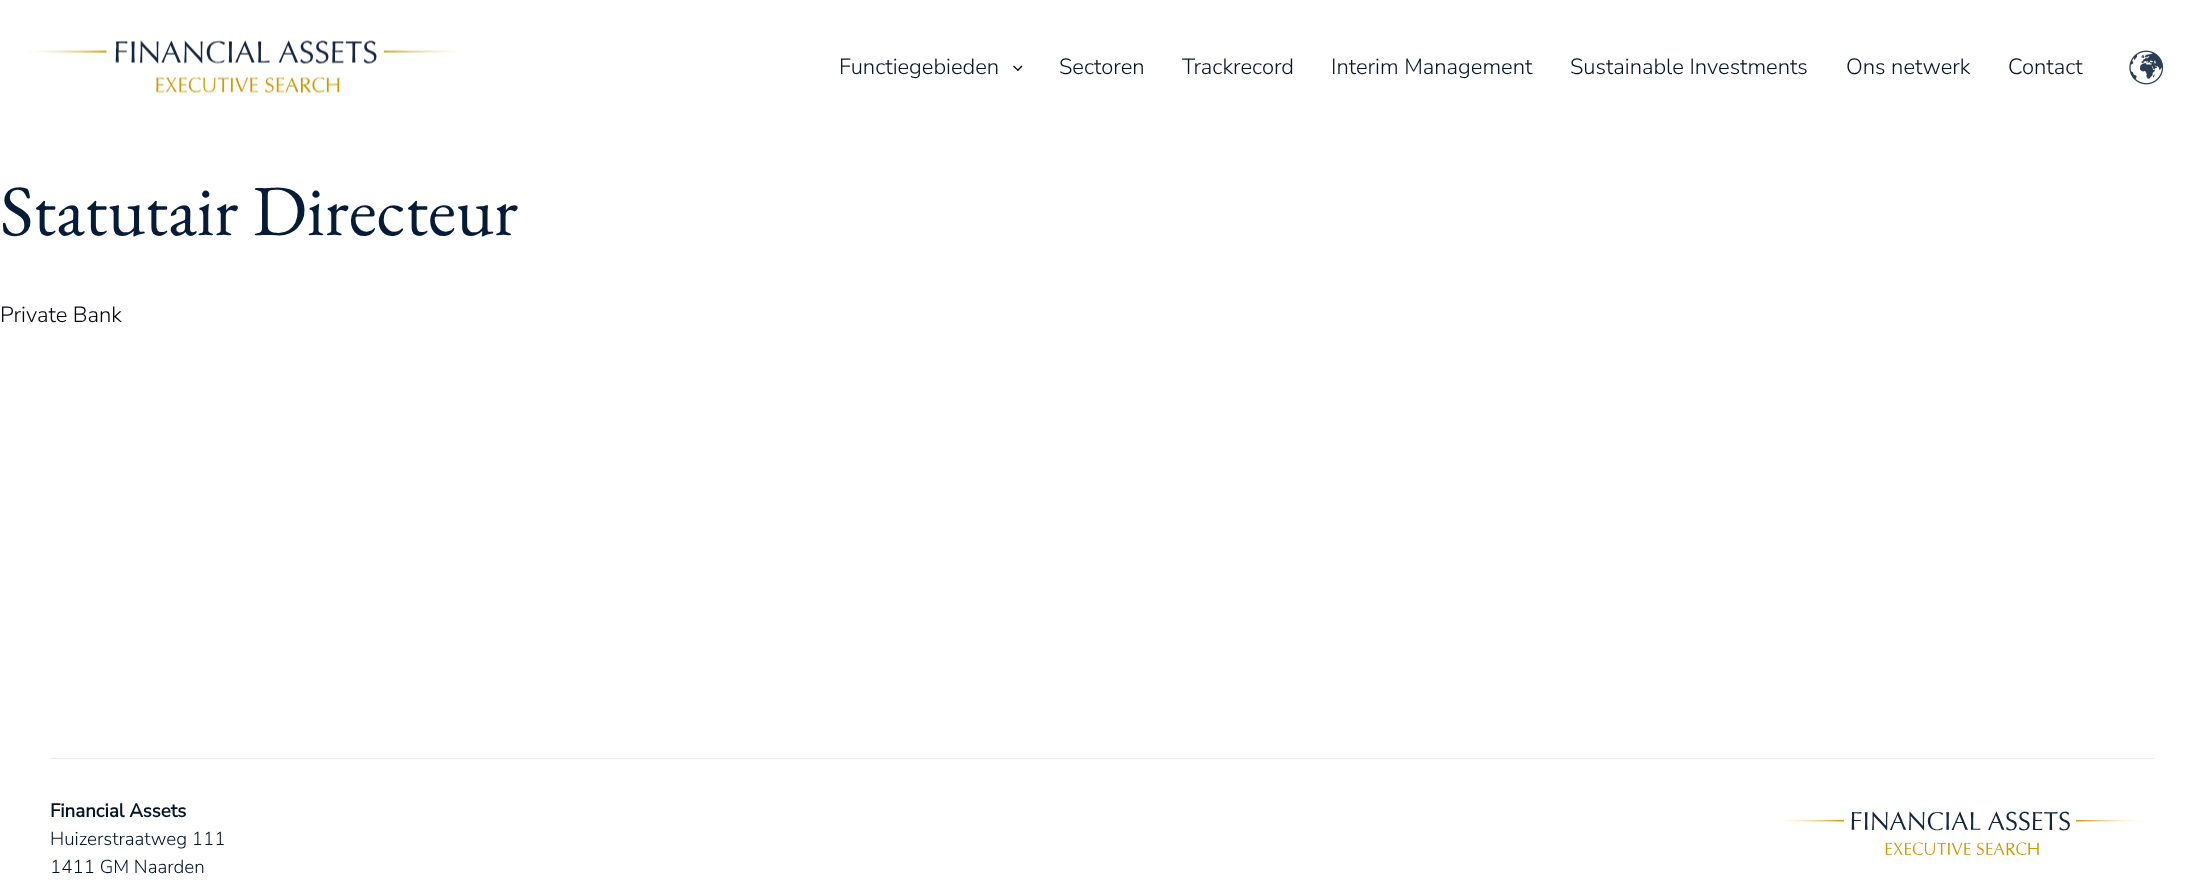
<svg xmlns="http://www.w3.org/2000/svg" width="2203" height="896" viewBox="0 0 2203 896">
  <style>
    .t1 { font: 300 22px Nunito Sans; fill: #061324; }
    .t2 { font: 72px EB Garamond; fill: #061b37; }
    .t3 { font: 300 22px Nunito Sans; fill: #010308; }
    .t4 { font: bold 18.75px Nunito Sans; fill: #061324; }
    .t5 { font: 300 18.75px Nunito Sans; fill: #061324; }
  </style>
  <rect width="100%" height="100%" fill="#fff"/>
  <image x="26" y="40" width="440" height="53" href="images/1.png"/>
  <text x="839" y="74" class="t1">Functiegebieden</text>
  <path d="M1018 71L1013 66.5L1014 65.5L1018.5 70Z" fill="#010308"/>
  <path d="M1018 71L1017 70L1021.5 65.5L1022.5 66.5Z" fill="#010308"/>
  <text x="1059" y="74" class="t1">Sectoren</text>
  <text x="1182" y="74" class="t1">Trackrecord</text>
  <text x="1331" y="74" class="t1">Interim Management</text>
  <text x="1570" y="74" class="t1">Sustainable Investments</text>
  <text x="1846" y="74" class="t1">Ons netwerk</text>
  <text x="2008" y="74" class="t1">Contact</text>
  <image x="2129" y="50" width="35" height="35" href="images/2.png"/>
  <text x="0" y="235" class="t2">Statutair Directeur</text>
  <text x="0" y="322" class="t3">Private Bank</text>
  <rect x="50" y="758" width="2104" height="1" fill="#e9ecef"/>
  <text x="50" y="817" class="t4">Financial Assets</text>
  <text x="50" y="845" class="t5">Huizerstraatweg 111</text>
  <text x="50" y="873" class="t5">1411 GM Naarden</text>
  <image x="1776" y="811" width="367" height="45" href="images/3.png"/>
</svg>
